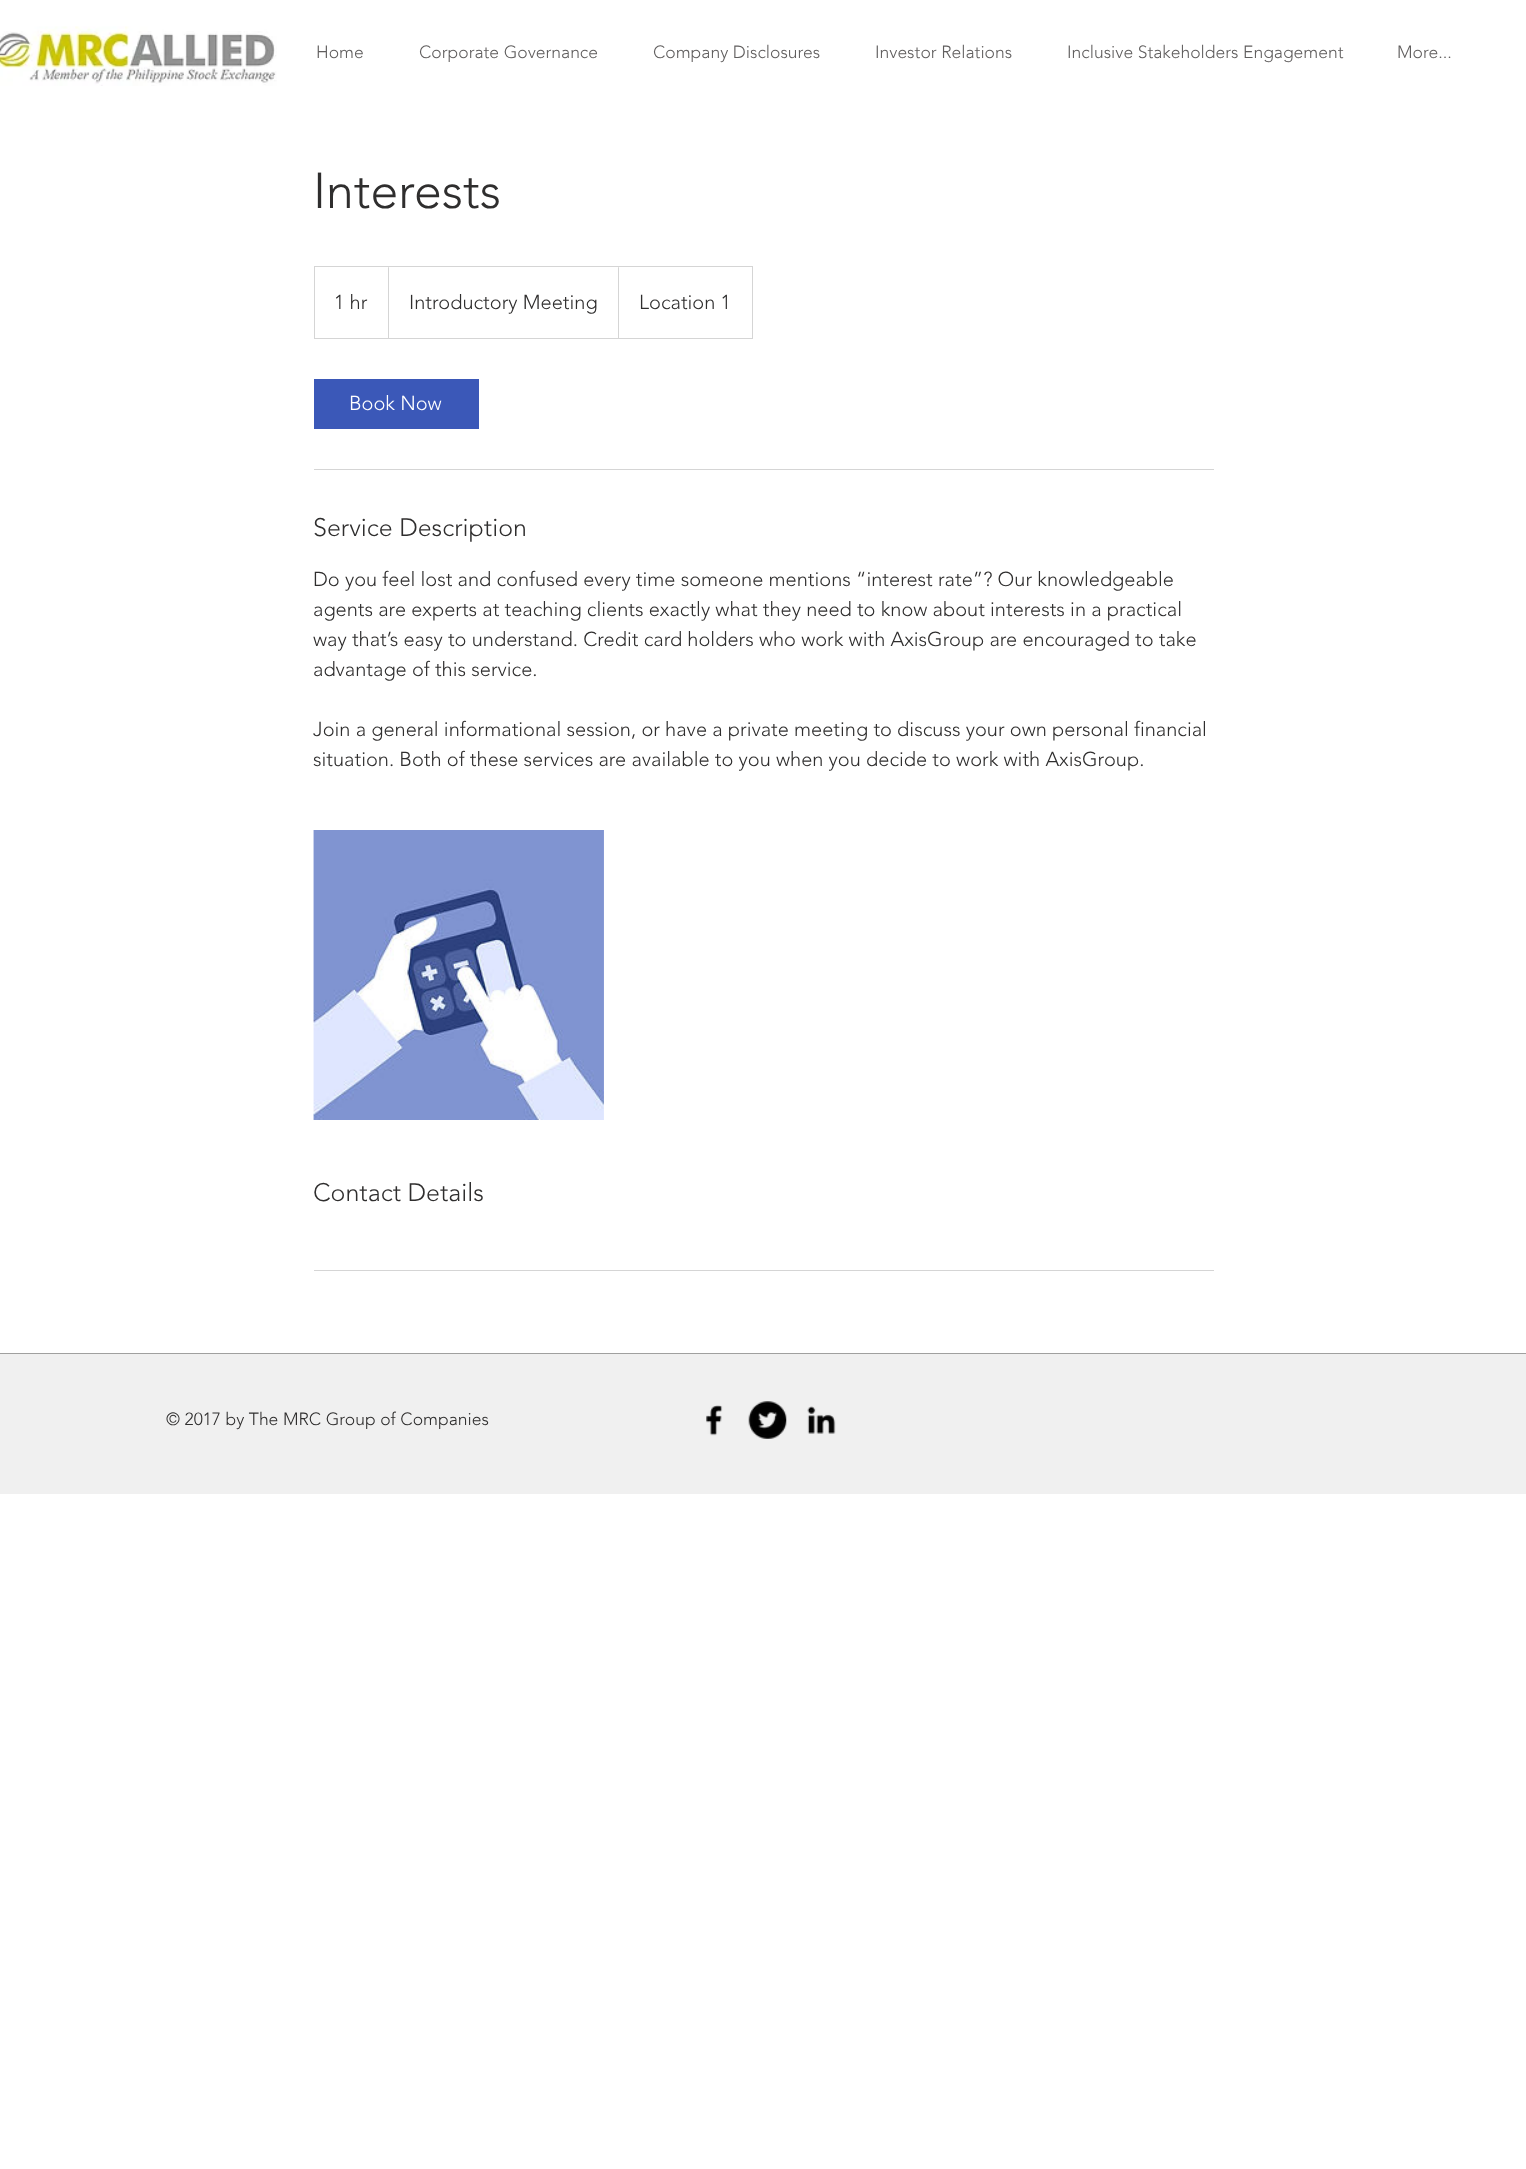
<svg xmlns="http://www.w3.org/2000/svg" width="1526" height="2169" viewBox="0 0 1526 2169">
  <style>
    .t1 { font: 300 17.5px 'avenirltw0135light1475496'; fill: #605e5e; }
    .t2 { font: 300 50px 'avenirltw0135light1475496'; fill: #2f2e2e; }
    .t3 { font: 300 20px 'avenirltw0135light1475496'; fill: #2f2e2e; }
    .t4 { font: 300 20px 'avenirltw0135light1475496'; fill: #fff; }
    .t5 { font: 300 25px 'avenirltw0135light1475496'; fill: #2f2e2e; }
    .t6 { font: 300 17.5px 'avenirltw0135light1475496'; fill: #2f2e2e; }
  </style>
  <rect width="100%" height="100%" fill="#fff"/>
  <image x="0" y="26" width="277" height="60" href="images/1.png"/>
  <text x="316" y="58" class="t1">Home</text>
  <text x="419" y="58" class="t1">Corporate Governance</text>
  <text x="653" y="58" class="t1">Company Disclosures</text>
  <text x="875" y="58" class="t1">Investor Relations</text>
  <text x="1067" y="58" class="t1">Inclusive Stakeholders Engagement</text>
  <text x="1397" y="58" class="t1">More...</text>
  <text x="313" y="208" class="t2">Interests</text>
  <rect x="314.5" y="266.5" width="438" height="72" fill="none" stroke="#d5d5d5"/>
  <text x="334" y="309" class="t3">1 hr</text>
  <path d="M388 338V266L389 268V338Z" fill="#d5d5d5"/>
  <text x="409" y="309" class="t3">Introductory Meeting</text>
  <path d="M618 338V266L619 268V338Z" fill="#d5d5d5"/>
  <text x="639" y="309" class="t3">Location 1</text>
  <rect x="314" y="379" width="165" height="50" fill="#3b58b8"/>
  <text x="349" y="410" class="t4">Book Now</text>
  <rect x="314" y="469" width="900" height="1" fill="#d5d5d5"/>
  <text x="313" y="536" class="t5">Service Description</text>
  <text x="313" y="586" class="t3">Do you feel lost and confused every time someone mentions “interest rate”? Our knowledgeable</text>
  <text x="313" y="616" class="t3">agents are experts at teaching clients exactly what they need to know about interests in a practical</text>
  <text x="313" y="646" class="t3">way that’s easy to understand. Credit card holders who work with AxisGroup are encouraged to take</text>
  <text x="313" y="676" class="t3">advantage of this service.</text>
  <text x="313" y="736" class="t3">Join a general informational session, or have a private meeting to discuss your own personal financial</text>
  <text x="313" y="766" class="t3">situation. Both of these services are available to you when you decide to work with AxisGroup.</text>
  <image x="313" y="830" width="291" height="290" href="images/2.png"/>
  <image x="313" y="830" width="291" height="290" href="images/3.png"/>
  <text x="313" y="1201" class="t5">Contact Details</text>
  <rect x="314" y="1270" width="900" height="1" fill="#d5d5d5"/>
  <rect x="0" y="1354" width="1526" height="140" fill="#f0f0f0"/>
  <rect x="0" y="1353" width="1526" height="1" fill="#a0a09f"/>
  <text x="166" y="1425" class="t6">© 2017 by The MRC Group of Companies</text>
  <image x="706" y="1405" width="17" height="31" href="images/4.png"/>
  <image x="748" y="1401" width="39" height="38" href="images/5.png"/>
  <image x="807" y="1406" width="29" height="28" href="images/6.png"/>
</svg>
